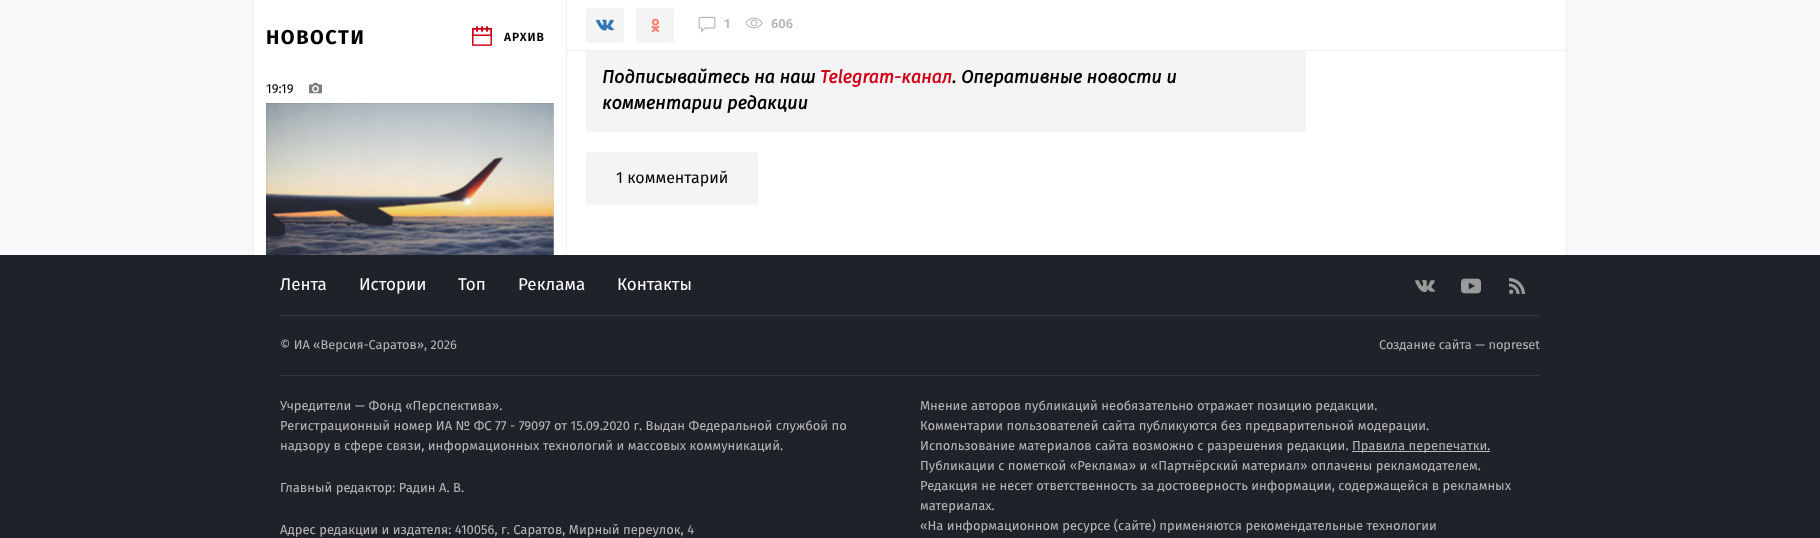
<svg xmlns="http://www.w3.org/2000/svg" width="1820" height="538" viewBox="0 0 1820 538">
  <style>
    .t1 { font: bold 20px Fira Sans; letter-spacing: 1.5px; fill: #000; }
    .t2 { font: 600 12px Fira Sans; letter-spacing: 1px; fill: #000; }
    .t3 { font: 13px Fira Sans; fill: #000; }
    .t4 { font: 600 13px Fira Sans; fill: #b7b7b7; }
    .t5 { font: italic bold 18px Fira Sans; fill: #000; }
    .t6 { font: italic bold 18px Fira Sans; fill: #d0021b; }
    .t7 { font: 16px Fira Sans; fill: #000; }
    .t8 { font: 17px Fira Sans; fill: #fff; }
    .t9 { font: 12.75px Fira Sans; fill: #b7b7b7; }
    .t10 { font: 13px Fira Sans; fill: #b7b7b7; }
  </style>
  <rect width="100%" height="100%" fill="#f8f8fa"/>
  <rect x="1566" y="0" width="1" height="255" fill="#efefef"/>
  <rect x="254" y="0" width="1312" height="255" fill="#fff"/>
  <rect x="253" y="0" width="1" height="255" fill="#efefef"/>
  <rect x="566" y="0" width="1" height="255" fill="#efefef"/>
  <text x="266" y="44" class="t1">НОВОСТИ</text>
  <image x="472" y="26" width="20" height="20" href="images/1.png"/>
  <text x="504" y="41" class="t2">АРХИВ</text>
  <text x="266" y="93" class="t3">19:19</text>
  <image x="309" y="82" width="13" height="12" href="images/2.png"/>
  <image x="266" y="103" width="288" height="152" href="images/3.png"/>
  <rect x="266.5" y="103.5" width="287" height="190" fill="none" stroke="#0000000d"/>
  <rect x="586" y="8" width="38" height="35" rx="3" fill="#f4f4f4"/>
  <image x="596" y="19" width="18" height="12" href="images/4.png"/>
  <rect x="636" y="8" width="38" height="35" rx="3" fill="#f4f4f4"/>
  <image x="651" y="18" width="9" height="15" href="images/5.png"/>
  <image x="698" y="16" width="18" height="17" href="images/6.png"/>
  <text x="724" y="28" class="t4">1</text>
  <image x="745" y="17" width="18" height="12" href="images/7.png"/>
  <text x="771" y="28" class="t4">606</text>
  <rect x="586" y="49" width="720" height="83" rx="3" fill="#f4f4f4"/>
  <rect x="587" y="49" width="718" height="1" fill="#fffffffa"/>
  <rect x="567" y="50" width="999" height="1" fill="#f1f1f1"/>
  <text x="602" y="83" class="t5">Подписывайтесь на наш</text>
  <text x="820" y="83" class="t6">Telegram-канал</text>
  <text x="952" y="83" class="t5">. Оперативные новости и</text>
  <text x="602" y="109" class="t5">комментарии редакции</text>
  <rect x="586" y="152" width="172" height="53" rx="3" fill="#f4f4f4"/>
  <text x="616" y="183" class="t7">1 комментарий</text>
  <rect x="0" y="255" width="1820" height="283" fill="#1f2228"/>
  <text x="280" y="290" class="t8">Лента</text>
  <text x="359" y="290" class="t8">Истории</text>
  <text x="458" y="290" class="t8">Топ</text>
  <text x="518" y="290" class="t8">Реклама</text>
  <text x="617" y="290" class="t8">Контакты</text>
  <image x="1415" y="280" width="20" height="12" href="images/8.png"/>
  <image x="1461" y="278" width="20" height="16" href="images/9.png"/>
  <image x="1509" y="278" width="16" height="16" href="images/10.png"/>
  <rect x="280" y="315" width="1260" height="1" fill="#34373d"/>
  <rect x="280" y="375" width="1260" height="1" fill="#34373d"/>
  <text x="280" y="349" class="t9">© ИА «Версия-Саратов», 2026</text>
  <text x="1379" y="349" class="t9">Создание сайта — nopreset</text>
  <text x="280" y="410" class="t10">Учредители — Фонд «Перспектива».</text>
  <text x="280" y="430" class="t10">Регистрационный номер ИА № ФС 77 - 79097 от 15.09.2020 г. Выдан Федеральной службой по</text>
  <text x="280" y="450" class="t10">надзору в сфере связи, информационных технологий и массовых коммуникаций.</text>
  <text x="280" y="492" class="t10">Главный редактор: Радин А. В.</text>
  <text x="280" y="534" class="t10">Адрес редакции и издателя: 410056, г. Саратов, Мирный переулок, 4</text>
  <text x="920" y="410" class="t10">Мнение авторов публикаций необязательно отражает позицию редакции.</text>
  <text x="920" y="430" class="t10">Комментарии пользователей сайта публикуются без предварительной модерации.</text>
  <text x="920" y="450" class="t10">Использование материалов сайта возможно с разрешения редакции.</text>
  <rect x="1352" y="451" width="138" height="1" fill="#bcbcbc"/>
  <text x="1352" y="450" class="t10">Правила перепечатки.</text>
  <text x="920" y="470" class="t10">Публикации с пометкой «Реклама» и «Партнёрский материал» оплачены рекламодателем.</text>
  <text x="920" y="490" class="t10">Редакция не несет ответственность за достоверность информации, содержащейся в рекламных</text>
  <text x="920" y="510" class="t10">материалах.</text>
  <text x="920" y="530" class="t10">«На информационном ресурсе (сайте) применяются рекомендательные технологии</text>
</svg>
